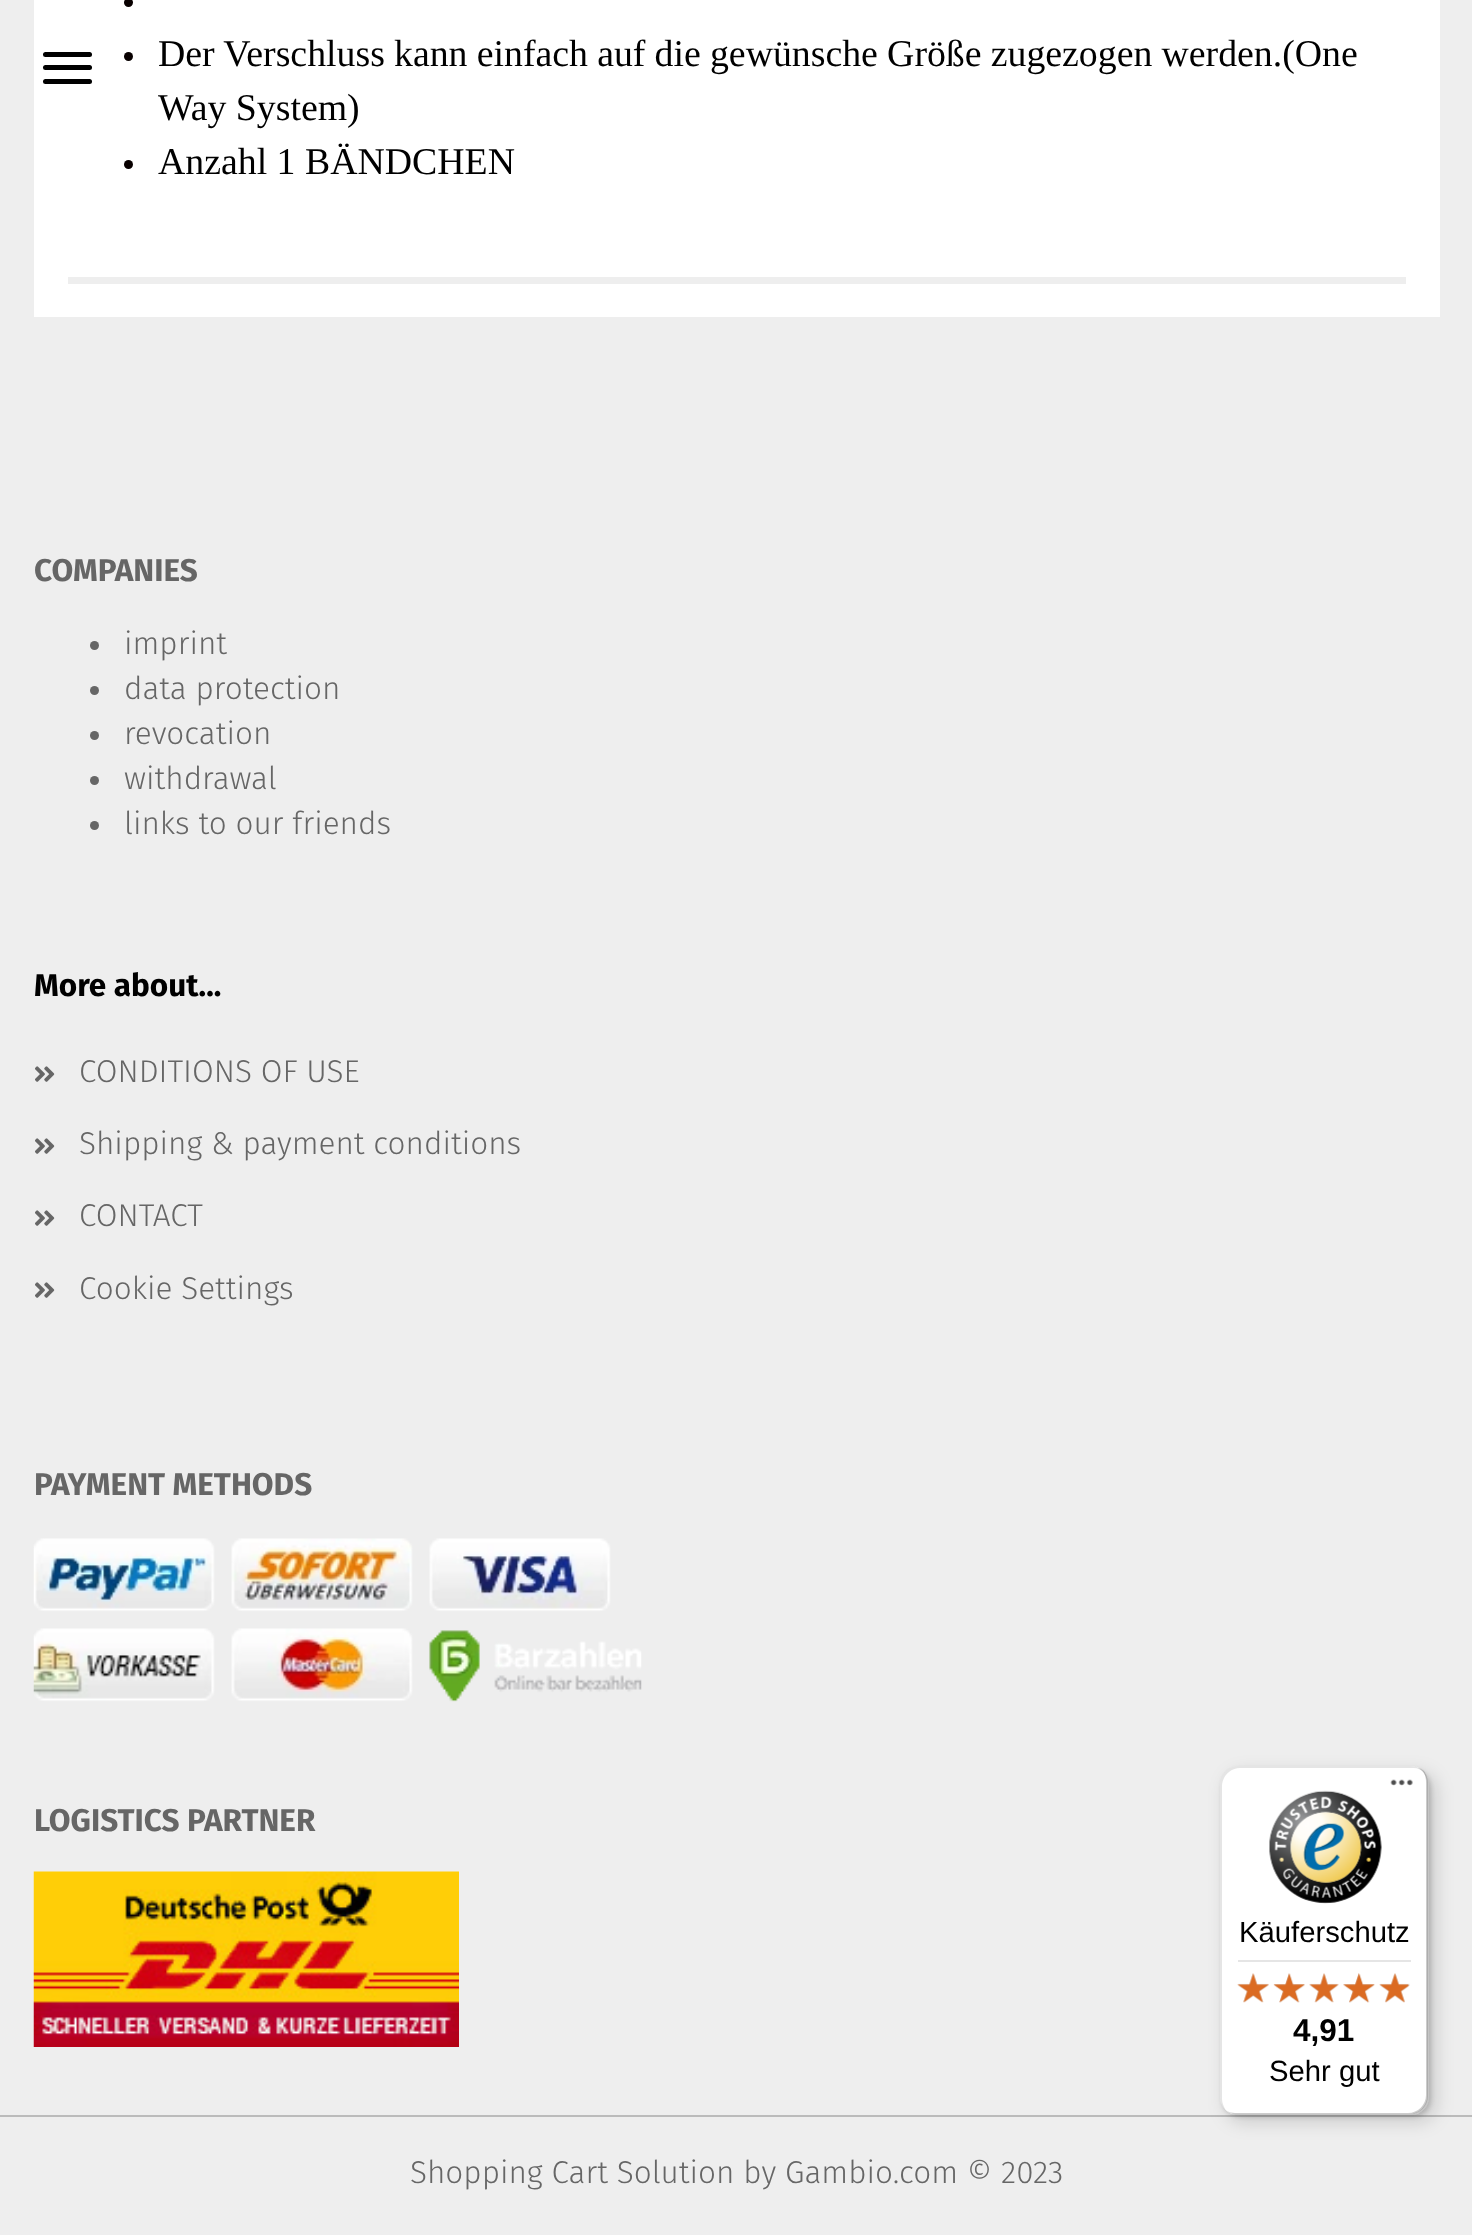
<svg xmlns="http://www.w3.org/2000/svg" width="1472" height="2235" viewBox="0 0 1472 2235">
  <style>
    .t1 { font: 37.8px Liberation Serif; fill: #000; }
    .t2 { font: bold 31.5px Fira Sans; fill: #666; }
    .t3 { font: 300 31.5px Fira Sans; fill: #666; }
    .t4 { font: bold 31.5px Fira Sans; fill: #000; }
    .t5 { font: 29.25px Liberation Sans; fill: #000; }
    .t6 { font: bold 31.5px Liberation Sans; fill: #000; }
  </style>
  <rect width="100%" height="100%" fill="#eee"/>
  <rect x="34" y="0" width="1406" height="317" fill="#fff"/>
  <rect x="43" y="65" width="49" height="5" rx="2.5" fill="#000"/>
  <rect x="43" y="52" width="49" height="5" rx="2.5" fill="#000"/>
  <rect x="43" y="79" width="49" height="5" rx="2.5" fill="#000"/>
  <rect x="68" y="277" width="1338" height="7" fill="#eee"/>
  <circle cx="128.5" cy="2.5" r="4.5" fill="#080000"/>
  <circle cx="128.5" cy="56.5" r="4.5" fill="#080000"/>
  <text x="158" y="66" word-spacing="-0.25" class="t1">Der Verschluss kann einfach auf die gewünsche Größe zugezogen werden.(One</text>
  <text x="158" y="120" class="t1">Way System)</text>
  <circle cx="128.5" cy="164.5" r="4.5" fill="#080000"/>
  <text x="158" y="174" class="t1">Anzahl 1 BÄNDCHEN</text>
  <rect x="0" y="2115" width="1472" height="2" fill="#bbb"/>
  <text x="34" y="581" class="t2">COMPANIES</text>
  <circle cx="94.5" cy="645.5" r="4.5" fill="#666"/>
  <text x="124" y="654" class="t3">imprint</text>
  <circle cx="94.5" cy="690.5" r="4.5" fill="#666"/>
  <text x="124" y="699" class="t3">data protection</text>
  <circle cx="94.5" cy="735.5" r="4.5" fill="#666"/>
  <text x="124" y="744" class="t3">revocation</text>
  <circle cx="94.5" cy="780.5" r="4.5" fill="#666"/>
  <text x="124" y="789" class="t3">withdrawal</text>
  <circle cx="94.5" cy="825.5" r="4.5" fill="#666"/>
  <text x="124" y="834" class="t3">links to our friends</text>
  <text x="34" y="996" class="t4">More about...</text>
  <image x="35" y="1066" width="20" height="16" href="images/1.png"/>
  <text x="79" y="1082" class="t3">CONDITIONS OF USE</text>
  <image x="35" y="1138" width="20" height="16" href="images/1.png"/>
  <text x="79" y="1154" class="t3">Shipping &amp; payment conditions</text>
  <image x="35" y="1210" width="20" height="16" href="images/1.png"/>
  <text x="79" y="1226" class="t3">CONTACT</text>
  <image x="35" y="1282" width="20" height="16" href="images/1.png"/>
  <text x="79" y="1299" class="t3">Cookie Settings</text>
  <text x="34" y="1495" class="t2">PAYMENT METHODS</text>
  <image x="33" y="1538" width="609" height="164" href="images/2.png"/>
  <text x="34" y="1831" class="t2">LOGISTICS PARTNER</text>
  <image x="33" y="1871" width="426" height="176" href="images/3.png"/>
  <text x="410" y="2183" class="t3">Shopping Cart Solution by Gambio.com © 2023</text>
  <rect x="1226" y="1773" width="210" height="349" rx="18" fill="#00000026" filter="blur(9px)"/>
  <rect x="1222" y="1769" width="209" height="348" rx="18" fill="#00000026" filter="blur(2px)"/>
  <rect x="1220" y="1766" width="209" height="349" rx="18" fill="#fff"/>
  <path d="M1240 1768H1413C1418 1768 1422 1770 1426 1773C1422 1769 1417 1766 1411 1766H1238C1228 1766 1220 1774 1220 1784V2097C1220 2102 1222 2107 1226 2111C1224 2107 1222 2103 1222 2099V1786C1222 1777 1230 1768 1240 1768Z" fill="#0000001a"/>
  <path d="M1227 2111C1230 2113 1234 2115 1238 2115H1411C1421 2115 1429 2107 1429 2097V1784C1429 1777 1425 1771 1420 1768C1424 1771 1426 1776 1426 1782V2095C1426 2105 1418 2113 1408 2113H1235C1232 2113 1229 2112 1227 2111Z" fill="#00000033"/>
  <path d="M1229 2113C1232 2114 1235 2115 1238 2115H1411C1421 2115 1429 2107 1429 2097V1784C1429 1777 1425 1770 1418 1768C1423 1771 1427 1776 1427 1783V2096C1427 2106 1419 2114 1409 2114H1236C1234 2114 1231 2114 1229 2113Z" fill="#32323233"/>
  <path d="M1229 2113C1232 2114 1235 2115 1238 2115H1411C1421 2115 1429 2107 1429 2097V1784C1429 1779 1427 1774 1424 1771C1426 1774 1428 1778 1428 1783V2096C1428 2106 1420 2114 1410 2114H1236C1234 2114 1231 2114 1229 2113Z" fill="#ffffff4d"/>
  <image x="1390" y="1779" width="23" height="7" href="images/4.png"/>
  <image x="1269" y="1790" width="113" height="114" href="images/5.png"/>
  <text x="1239" y="1942" class="t5">Käuferschutz</text>
  <rect x="1238" y="1960" width="173" height="2" fill="#e5e5e5"/>
  <image x="1238" y="1973" width="31" height="29" href="images/11.png"/>
  <image x="1237" y="1973" width="32" height="30" href="images/6.png"/>
  <image x="1274" y="1973" width="31" height="30" href="images/12.png"/>
  <image x="1273" y="1973" width="32" height="30" href="images/7.png"/>
  <image x="1309" y="1973" width="30" height="29" href="images/13.png"/>
  <image x="1309" y="1973" width="30" height="30" href="images/8.png"/>
  <image x="1343" y="1973" width="32" height="30" href="images/14.png"/>
  <image x="1343" y="1973" width="32" height="30" href="images/9.png"/>
  <image x="1380" y="1973" width="30" height="29" href="images/15.png"/>
  <image x="1379" y="1973" width="30" height="30" href="images/10.png"/>
  <text x="1293" y="2041" class="t6">4,91</text>
  <text x="1269" y="2081" class="t5">Sehr gut</text>
</svg>
